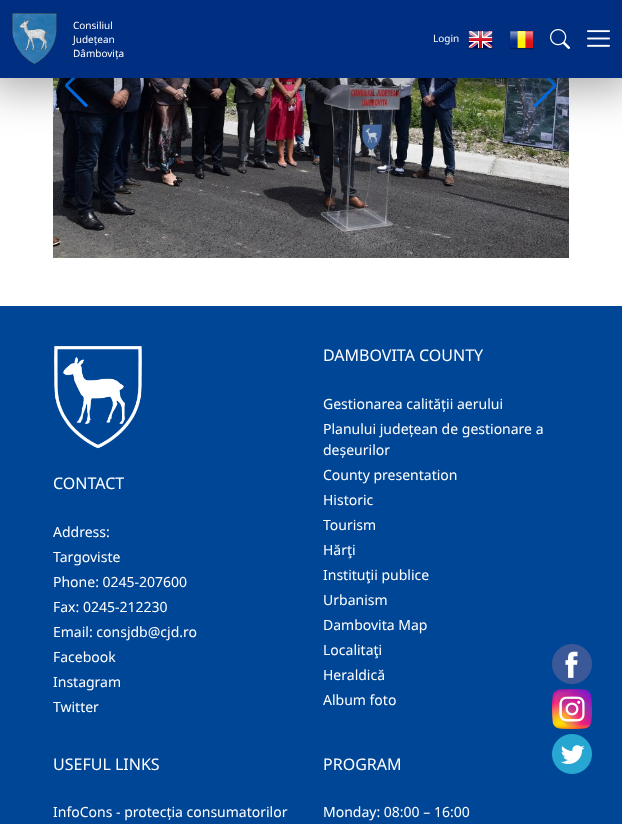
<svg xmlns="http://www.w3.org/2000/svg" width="622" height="824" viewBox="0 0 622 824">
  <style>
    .t1 { font: 10px Noto Sans; fill: #fff; }
    .t2 { font: 16px Noto Sans; fill: #fff; }
    .t3 { font: 14px Noto Sans; fill: #fff; }
  </style>
  <rect width="100%" height="100%" fill="#fff"/>
  <image x="53" y="78" width="516" height="180" href="images/6.png"/>
  <image x="65" y="78" width="23" height="29" href="images/7.png"/>
  <image x="533" y="78" width="24" height="29" href="images/8.png"/>
  <rect x="-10" y="-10" width="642" height="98" fill="#00000059" filter="blur(21.5px)"/>
  <rect x="0" y="0" width="622" height="78" fill="#002e80"/>
  <image x="12" y="13" width="45" height="52" href="images/1.png"/>
  <text x="73" y="29" class="t1">Consiliul</text>
  <text x="73" y="43" class="t1">Județean</text>
  <text x="73" y="57" class="t1">Dâmbovița</text>
  <text x="433" y="42" class="t1">Login</text>
  <image x="468" y="30" width="25" height="20" href="images/2.png"/>
  <image x="509" y="30" width="25" height="20" href="images/3.png"/>
  <image x="550" y="29" width="20" height="20" href="images/4.png"/>
  <image x="587" y="30" width="23" height="17" href="images/5.png"/>
  <rect x="0" y="306" width="622" height="518" fill="#004696"/>
  <image x="54" y="346" width="88" height="103" href="images/9.png"/>
  <text x="53" y="489" class="t2">CONTACT</text>
  <text x="53" y="537" class="t3">Address:</text>
  <text x="53" y="562" class="t3">Targoviste</text>
  <text x="53" y="587" class="t3">Phone: 0245-207600</text>
  <text x="53" y="612" class="t3">Fax: 0245-212230</text>
  <text x="53" y="637" class="t3">Email: consjdb@cjd.ro</text>
  <text x="53" y="662" class="t3">Facebook</text>
  <text x="53" y="687" class="t3">Instagram</text>
  <text x="53" y="712" class="t3">Twitter</text>
  <text x="323" y="361" class="t2">DAMBOVITA COUNTY</text>
  <text x="323" y="409" class="t3">Gestionarea calității aerului</text>
  <text x="323" y="434" class="t3">Planului județean de gestionare a</text>
  <text x="323" y="455" class="t3">deșeurilor</text>
  <text x="323" y="480" class="t3">County presentation</text>
  <text x="323" y="505" class="t3">Historic</text>
  <text x="323" y="530" class="t3">Tourism</text>
  <text x="323" y="555" class="t3">Hărţi</text>
  <text x="323" y="580" class="t3">Instituţii publice</text>
  <text x="323" y="605" class="t3">Urbanism</text>
  <text x="323" y="630" class="t3">Dambovita Map</text>
  <text x="323" y="655" class="t3">Localitaţi</text>
  <text x="323" y="680" class="t3">Heraldică</text>
  <text x="323" y="705" class="t3">Album foto</text>
  <text x="53" y="770" class="t2">USEFUL LINKS</text>
  <text x="53" y="817" class="t3">InfoCons - protecția consumatorilor</text>
  <text x="323" y="770" class="t2">PROGRAM</text>
  <text x="323" y="817" class="t3">Monday: 08:00 – 16:00</text>
  <image x="552" y="644" width="40" height="40" href="images/10.png"/>
  <image x="552" y="689" width="40" height="40" href="images/11.png"/>
  <image x="552" y="734" width="40" height="40" href="images/12.png"/>
</svg>
